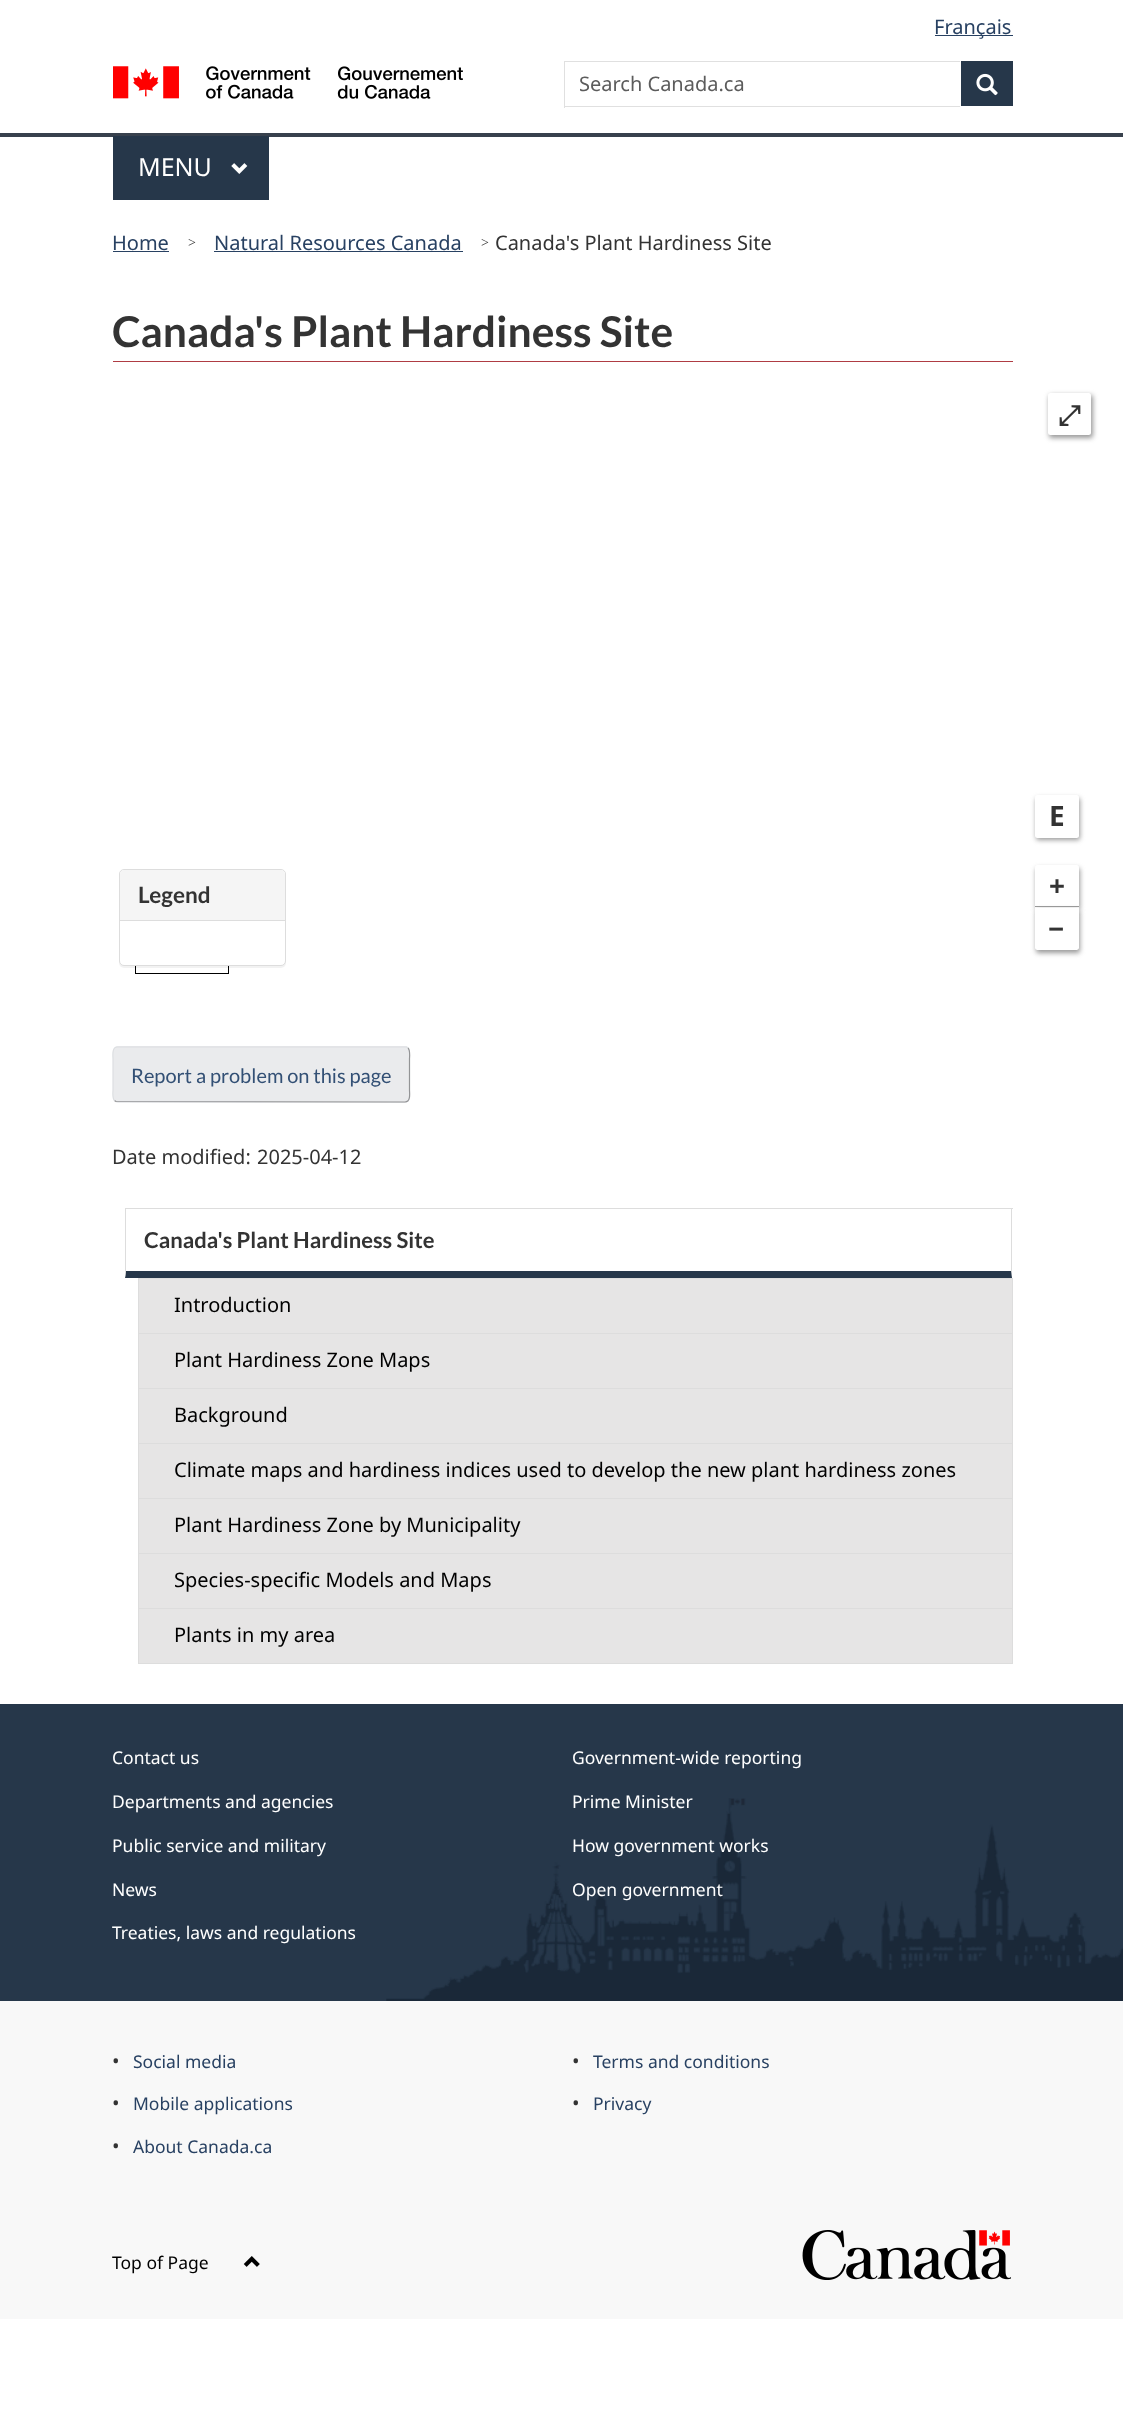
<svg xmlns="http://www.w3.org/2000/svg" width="1123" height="2411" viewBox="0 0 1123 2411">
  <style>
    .t1 { font: 20px Noto Sans; fill: #284162; }
    .t2 { font: 20px Noto Sans; fill: #5c5c5c; }
    .t3 { font: 25px Noto Sans; fill: #fff; }
    .t4 { font: 14px Liberation Serif; fill: #333; }
    .t5 { font: 20px Noto Sans; fill: #333; }
    .t6 { font: bold 42.5px Lato; fill: #333; }
    .t7 { font: bold 22.5px Lato; fill: #333; }
    .t8 { font: bold 28px FreeSerif; fill: #333; }
    .t9 { font: bold 28px Noto Sans; fill: #333; }
    .t10 { font: 20px Lato; fill: #335075; }
    .t11 { font: bold 22px Lato; fill: #333; }
    .t12 { font: 20px Noto Sans; fill: #000; }
    .t13 { font: 17.5px Noto Sans; fill: #fff; }
    .t14 { font: 17.5px Noto Sans; fill: #284162; }
    .t15 { font: 17.5px Noto Sans; fill: #000; }
  </style>
  <rect width="100%" height="100%" fill="#fff"/>
  <rect x="935" y="35" width="78" height="1" fill="#284162"/>
  <text x="934" y="34" class="t1">Français</text>
  <image x="113" y="66" width="350" height="33" href="images/1.png"/>
  <rect x="564" y="61" width="396" height="1" fill="#e0e0e0"/>
  <rect x="564" y="106" width="396" height="1" fill="#e0e0e0"/>
  <rect x="564" y="61" width="1" height="47" fill="#e0e0e0"/>
  <text x="579" y="91" class="t2">Search Canada.ca</text>
  <rect x="961" y="61" width="52" height="45" fill="#26374a"/>
  <image x="976" y="73" width="22" height="23" href="images/2.png"/>
  <rect x="0" y="133" width="1123" height="4" fill="#38414d"/>
  <rect x="113" y="136" width="156" height="64" fill="#26374a"/>
  <text x="138" y="176" class="t3">MENU</text>
  <image x="231" y="163" width="17" height="11" href="images/3.png"/>
  <text x="112" y="250" class="t1">Home</text>
  <rect x="113" y="251" width="56" height="1" fill="#284162"/>
  <text x="188" y="247" class="t4">&gt;</text>
  <text x="214" y="250" class="t1">Natural Resources Canada</text>
  <rect x="214" y="251" width="249" height="1" fill="#284162"/>
  <text x="481" y="247" class="t4">&gt;</text>
  <text x="495" y="250" class="t5">Canada's Plant Hardiness Site</text>
  <rect x="113" y="361" width="900" height="1" fill="#af3c43"/>
  <text x="112" y="347" class="t6">Canada's Plant Hardiness Site</text>
  <rect x="228" y="966" width="1" height="8" fill="#000"/>
  <rect x="135" y="973" width="94" height="1" fill="#000"/>
  <rect x="135" y="966" width="1" height="8" fill="#000"/>
  <rect x="119" y="870" width="167" height="98" rx="5" fill="#0000000d" filter="blur(0.5px)"/>
  <rect x="119.5" y="869.5" width="166" height="96" rx="4.5" fill="#fff" stroke="#ddd"/>
  <path d="M124 870H281C283 870 285 872 285 874V921H120V874C120 872 122 870 124 870Z" fill="#f5f5f5"/>
  <rect x="120" y="920" width="165" height="1" fill="#ddd"/>
  <text x="138" y="903" class="t7">Legend</text>
  <rect x="1049" y="395" width="44" height="43" rx="2.5" fill="#999" filter="blur(2.5px)"/>
  <rect x="1048" y="393" width="43" height="42" rx="2.5" fill="#fff"/>
  <text x="1058" y="425" class="t8">⤢</text>
  <rect x="1036" y="798" width="44" height="42" rx="2.5" fill="#999" filter="blur(2.5px)"/>
  <rect x="1035" y="795" width="44" height="43" rx="2.5" fill="#fff"/>
  <text x="1049" y="826" class="t9">E</text>
  <rect x="1036" y="868" width="44" height="42" rx="2.5" fill="#999" filter="blur(2.5px)"/>
  <path d="M1037.5 865H1076.5C1078 865 1079 866 1079 867.5V908H1035V867.5C1035 866 1036 865 1037.5 865Z" fill="#fff"/>
  <rect x="1035" y="906" width="44" height="1" fill="#999"/>
  <text x="1049" y="896" class="t9">+</text>
  <rect x="1036" y="910" width="44" height="43" rx="2.5" fill="#999" filter="blur(2.5px)"/>
  <path d="M1035 908H1079V947.5C1079 949 1078 950 1076.5 950H1037.5C1036 950 1035 949 1035 947.5Z" fill="#fff"/>
  <text x="1048" y="939" class="t9">−</text>
  <rect x="113" y="1046" width="297" height="57" rx="5" fill="#eaebed"/>
  <path d="M408 1048C410.5 1050.5 409.5 1057 409.5 1059V1090C409.5 1093 411 1102 405 1102L116 1101.5L114.5 1100.5" fill="none" stroke="#939496" stroke-width="1.2"/>
  <path d="M114.5 1100.5C112 1098 113 1092 113 1090V1059C113 1056 111.5 1047 117.5 1047H406.5L408 1048" fill="none" stroke="#dcdee1" stroke-width="1.2"/>
  <text x="131" y="1083" class="t10">Report a problem on this page</text>
  <text x="112" y="1164" class="t5">Date modified:</text>
  <text x="257" y="1164" class="t5">2025-04-12</text>
  <rect x="125" y="1208" width="888" height="1" fill="#ddd"/>
  <path d="M1012 1208V1278L1011 1271V1209Z" fill="#ddd"/>
  <path d="M1012 1278H125L126 1271H1011Z" fill="#26374a"/>
  <path d="M125 1278V1208L126 1209V1271Z" fill="#ddd"/>
  <text x="144" y="1248" class="t11">Canada's Plant Hardiness Site</text>
  <rect x="138.5" y="1278.5" width="874" height="55" fill="#e6e5e5" stroke="#ddd"/>
  <text x="174" y="1312" class="t12">Introduction</text>
  <rect x="138.5" y="1333.5" width="874" height="55" fill="#e6e5e5" stroke="#ddd"/>
  <text x="174" y="1367" class="t12">Plant Hardiness Zone Maps</text>
  <rect x="138.5" y="1388.5" width="874" height="55" fill="#e6e5e5" stroke="#ddd"/>
  <text x="174" y="1422" class="t12">Background</text>
  <rect x="138.5" y="1443.5" width="874" height="55" fill="#e6e5e5" stroke="#ddd"/>
  <text x="174" y="1477" class="t12">Climate maps and hardiness indices used to develop the new plant hardiness zones</text>
  <rect x="138.5" y="1498.5" width="874" height="55" fill="#e6e5e5" stroke="#ddd"/>
  <text x="174" y="1532" class="t12">Plant Hardiness Zone by Municipality</text>
  <rect x="138.5" y="1553.5" width="874" height="55" fill="#e6e5e5" stroke="#ddd"/>
  <text x="174" y="1587" class="t12">Species-specific Models and Maps</text>
  <rect x="138.5" y="1608.5" width="874" height="55" fill="#e6e5e5" stroke="#ddd"/>
  <text x="174" y="1642" class="t12">Plants in my area</text>
  <rect x="0" y="1704" width="1123" height="297" fill="#26374a"/>
  <image x="386" y="1798" width="737" height="203" href="images/4.png"/>
  <text x="112" y="1764" class="t13">Contact us</text>
  <text x="572" y="1764" class="t13">Government-wide reporting</text>
  <text x="112" y="1808" class="t13">Departments and agencies</text>
  <text x="572" y="1808" class="t13">Prime Minister</text>
  <text x="112" y="1852" class="t13">Public service and military</text>
  <text x="572" y="1852" class="t13">How government works</text>
  <text x="112" y="1896" class="t13">News</text>
  <text x="572" y="1896" class="t13">Open government</text>
  <text x="112" y="1939" class="t13">Treaties, laws and regulations</text>
  <rect x="0" y="2001" width="1123" height="318" fill="#f8f8f8"/>
  <text x="112" y="2068" class="t5">•</text>
  <text x="133" y="2068" class="t14">Social media</text>
  <text x="572" y="2068" class="t5">•</text>
  <text x="593" y="2068" class="t14">Terms and conditions</text>
  <text x="112" y="2110" class="t5">•</text>
  <text x="133" y="2110" class="t14">Mobile applications</text>
  <text x="572" y="2110" class="t5">•</text>
  <text x="593" y="2110" class="t14">Privacy</text>
  <text x="112" y="2153" class="t5">•</text>
  <text x="133" y="2153" class="t14">About Canada.ca</text>
  <text x="112" y="2269" class="t15">Top of Page</text>
  <image x="243" y="2256" width="17" height="11" href="images/5.png"/>
  <image x="802" y="2230" width="209" height="50" href="images/6.png"/>
</svg>
